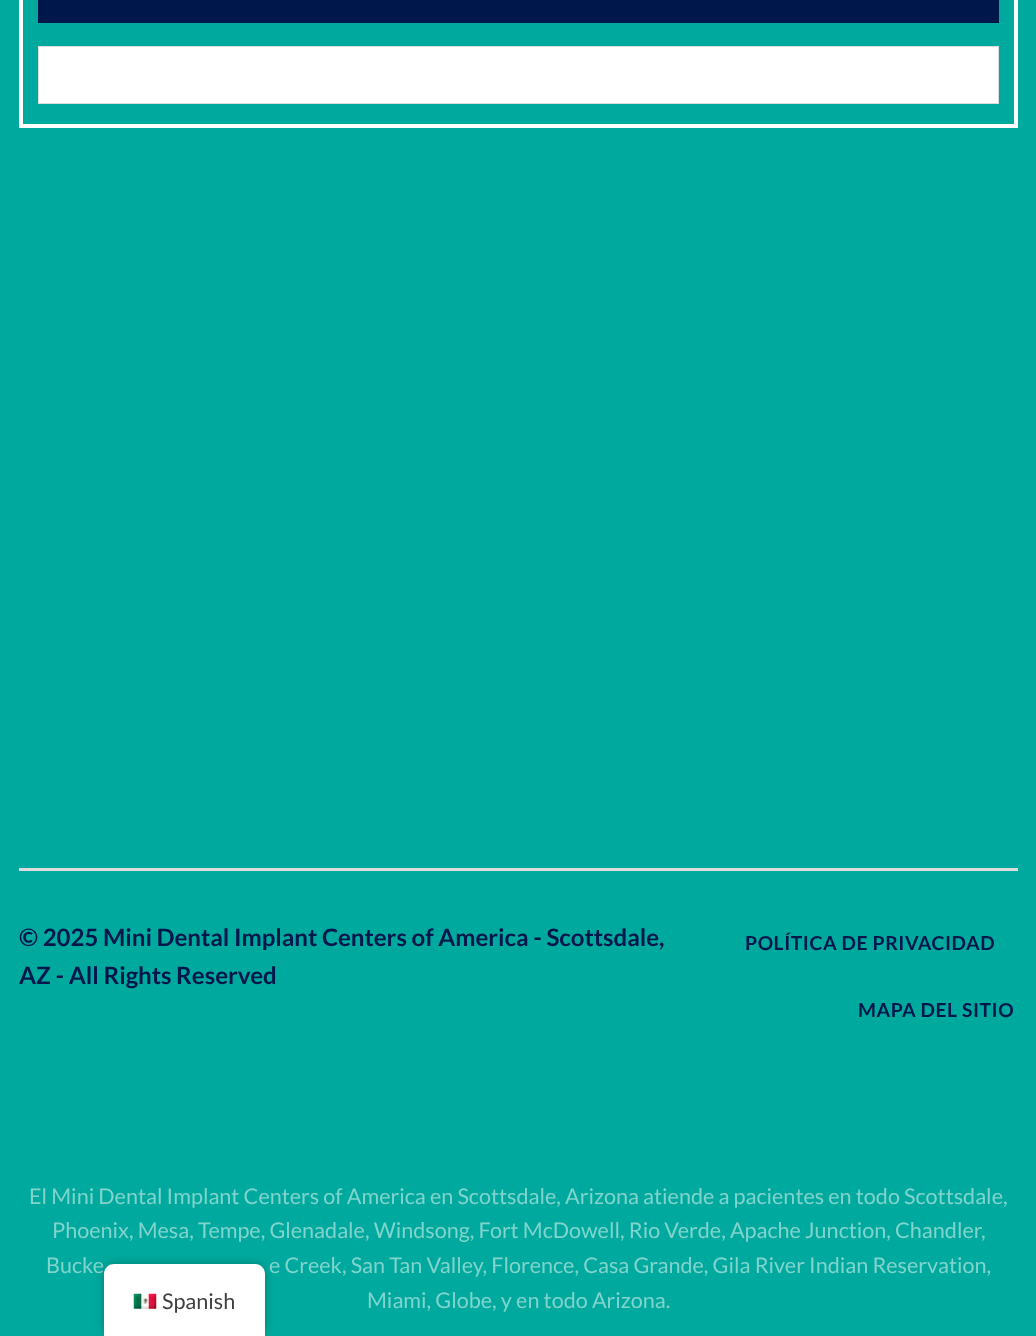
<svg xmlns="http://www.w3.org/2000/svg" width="1036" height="1336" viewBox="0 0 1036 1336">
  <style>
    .t1 { font: bold 24px Lato; fill: #00174c; }
    .t2 { font: bold 19.25px Lato; letter-spacing: 0.6px; fill: #00174c; }
    .t3 { font: 21.6px Lato; fill: #80d4ce; }
    .t4 { font: 21.6px Lato; fill: #404040; }
  </style>
  <rect width="100%" height="100%" fill="#00a99d"/>
  <rect x="21" y="-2" width="995" height="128" fill="none" stroke="#fff" stroke-width="4"/>
  <rect x="38.5" y="-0.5" width="960" height="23" fill="#00174c" stroke="#001648"/>
  <rect x="38.5" y="46.5" width="960" height="57" fill="#fff" stroke="#ddd"/>
  <rect x="19" y="868" width="999" height="3" fill="#ddd"/>
  <text x="19" y="946" class="t1">© 2025 Mini Dental Implant Centers of America - Scottsdale,</text>
  <text x="19" y="984" class="t1">AZ - All Rights Reserved</text>
  <text x="745" y="950" class="t2">POLÍTICA DE PRIVACIDAD</text>
  <text x="858" y="1017" class="t2">MAPA DEL SITIO</text>
  <text x="29" y="1204" class="t3">El Mini Dental Implant Centers of America en Scottsdale, Arizona atiende a pacientes en todo Scottsdale,</text>
  <text x="52" y="1238" class="t3">Phoenix, Mesa, Tempe, Glenadale, Windsong, Fort McDowell, Rio Verde, Apache Junction, Chandler,</text>
  <text x="46" y="1273" class="t3">Bucke</text>
  <text x="269" y="1273" class="t3">e Creek, San Tan Valley, Florence, Casa Grande, Gila River Indian Reservation,</text>
  <text x="367" y="1308" class="t3">Miami, Globe, y en todo Arizona.</text>
  <rect x="104" y="1264" width="161" height="72" rx="10" fill="#00000040" filter="blur(5px)"/>
  <path d="M114 1264H255C260.5 1264 265 1268.5 265 1274V1336H104V1274C104 1268.5 108.5 1264 114 1264Z" fill="#fff"/>
  <image x="133" y="1293" width="24" height="16" href="images/1.png"/>
  <text x="162" y="1309" class="t4">Spanish</text>
</svg>
